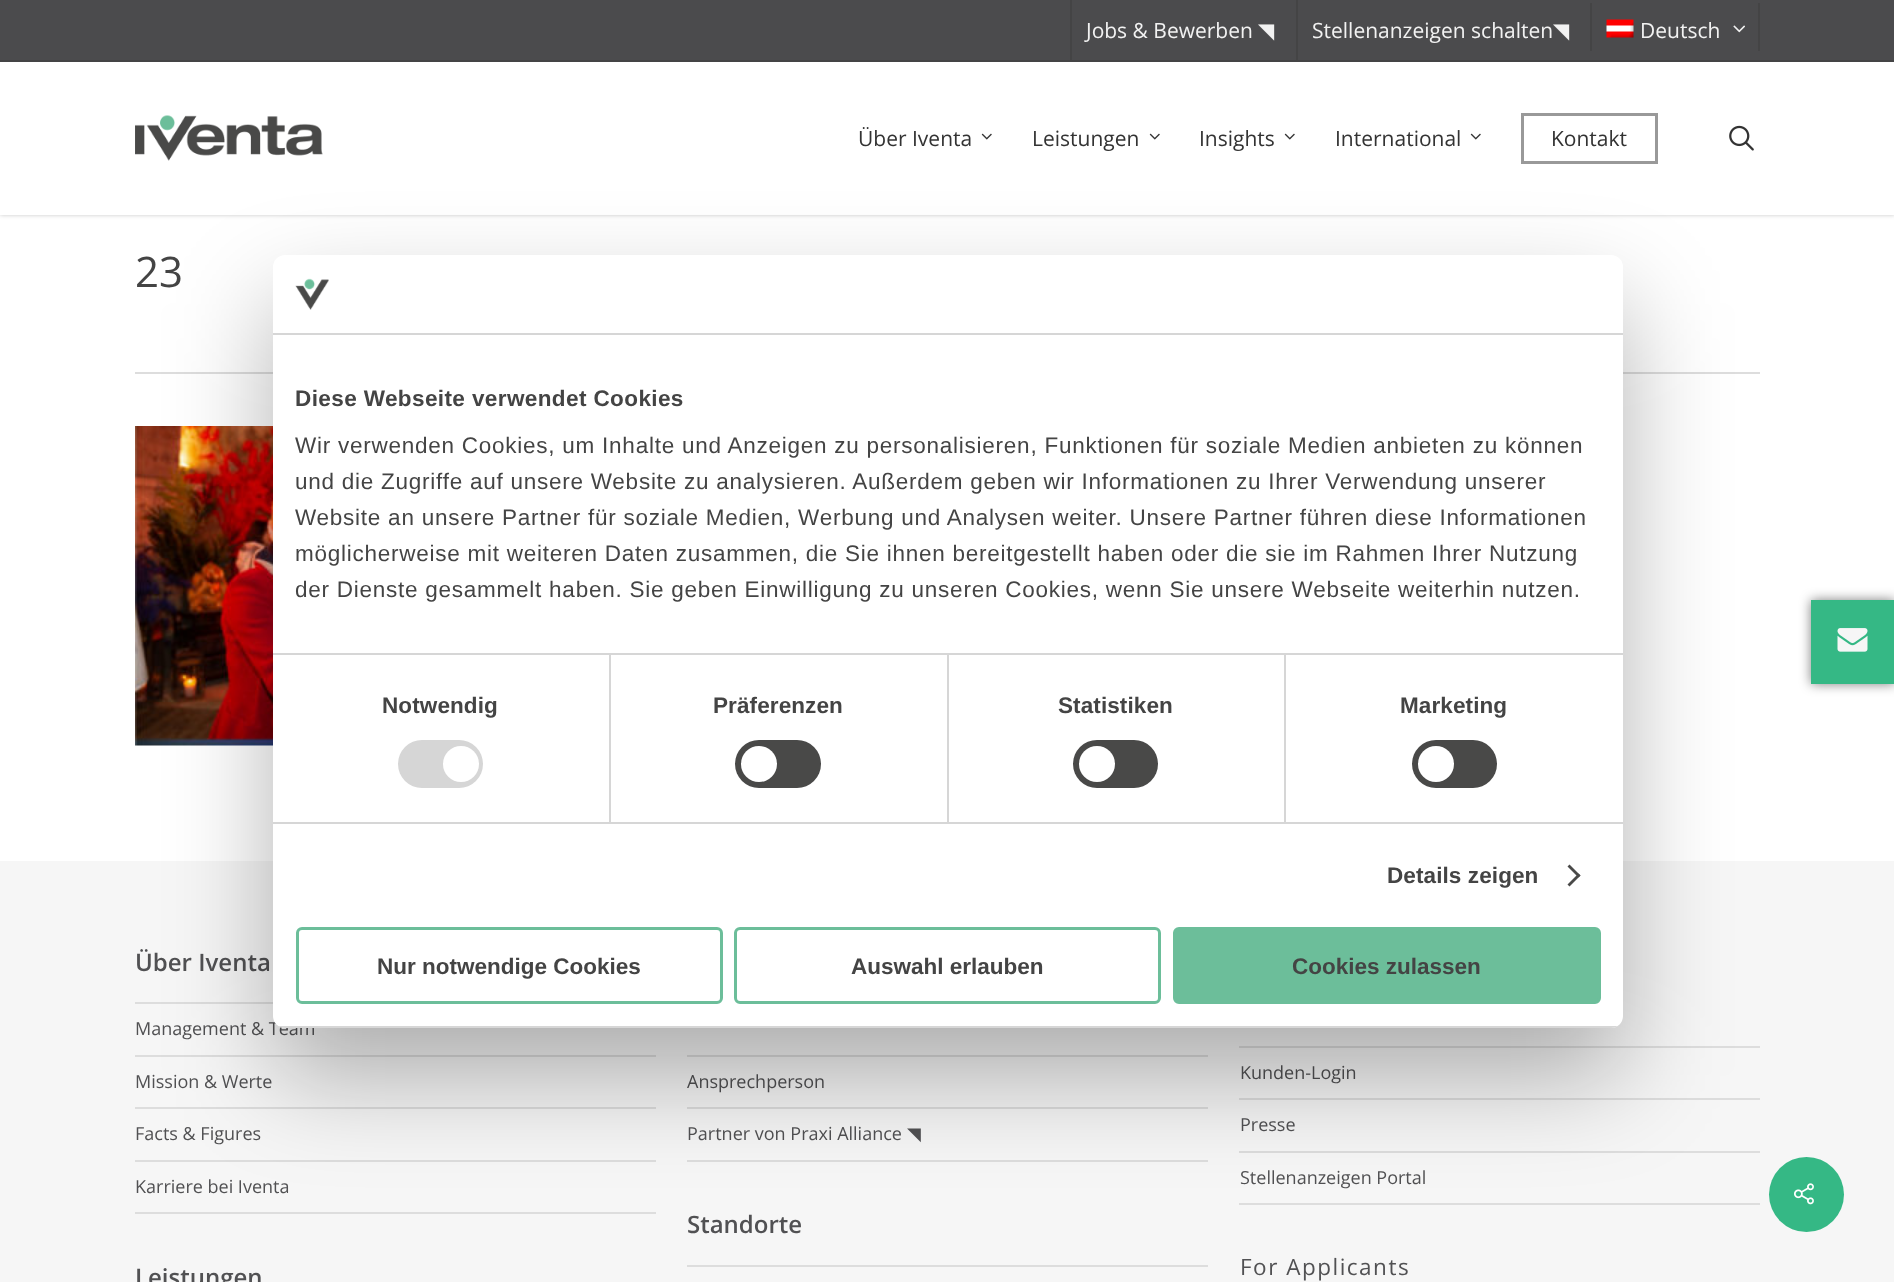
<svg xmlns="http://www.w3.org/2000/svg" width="1894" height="1282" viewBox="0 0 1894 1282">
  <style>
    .t1 { font: 21px Open Sans; fill: #f2f2f2; }
    .t2 { font: 21px DejaVu Sans; fill: #f2f2f2; }
    .t3 { font: 21px Open Sans; fill: #333; }
    .t4 { font: 42px Open Sans; fill: #444; }
    .t5 { font: 600 24px Open Sans; fill: #515153; }
    .t6 { font: 18px Open Sans; fill: #515153; }
    .t7 { font: 18px DejaVu Sans; fill: #515153; }
    .t8 { font: 22.5px Open Sans; letter-spacing: 1.5px; fill: #515153; }
    .t9 { font: bold 22.5px Liberation Sans; letter-spacing: 0.4px; fill: #444; }
    .t10 { font: 22.5px Liberation Sans; letter-spacing: 0.75px; fill: #444; }
    .t11 { font: bold 22.5px Liberation Sans; letter-spacing: 0.1px; fill: #444; }
    .t12 { font: bold 22.5px Liberation Sans; fill: #444; }
  </style>
  <defs>
    <clipPath id="clip1"><rect x="273" y="255" width="1350" height="773" rx="12"/></clipPath>
  </defs>
  <rect width="100%" height="100%" fill="#fff"/>
  <rect x="0" y="0" width="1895" height="215" fill="#00000038" filter="blur(2px)"/>
  <rect x="0" y="62" width="1894" height="153" fill="#fff"/>
  <rect x="0" y="0" width="1894" height="60" fill="#4b4b4d"/>
  <rect x="0" y="60" width="1894" height="2" fill="#444445"/>
  <rect x="1070" y="0" width="2" height="60" fill="#444445"/>
  <text x="1086" y="38" class="t1">Jobs &amp; Bewerben</text>
  <text x="1258" y="38" class="t2">◥</text>
  <rect x="1296" y="0" width="2" height="60" fill="#444445"/>
  <text x="1312" y="38" class="t1">Stellenanzeigen schalten</text>
  <text x="1553" y="38" class="t2">◥</text>
  <rect x="1758" y="3" width="2" height="48" fill="#444445"/>
  <rect x="1590" y="3" width="2" height="48" fill="#444445"/>
  <image x="1606" y="19" width="28" height="19" href="images/1.png"/>
  <text x="1640" y="38" class="t1">Deutsch</text>
  <image x="1733" y="25" width="12" height="8" href="images/2.png"/>
  <image x="135" y="115" width="188" height="46" href="images/3.png"/>
  <text x="858" y="146" class="t3">Über Iventa</text>
  <image x="981" y="133" width="11" height="7" href="images/4.png"/>
  <text x="1032" y="146" class="t3">Leistungen</text>
  <image x="1149" y="133" width="11" height="7" href="images/4.png"/>
  <text x="1199" y="146" class="t3">Insights</text>
  <image x="1284" y="133" width="11" height="7" href="images/4.png"/>
  <text x="1335" y="146" class="t3">International</text>
  <image x="1470" y="133" width="11" height="7" href="images/4.png"/>
  <rect x="1522.5" y="114.5" width="134" height="48" fill="none" stroke="#999" stroke-width="3"/>
  <text x="1551" y="146" class="t3">Kontakt</text>
  <image x="1729" y="125" width="25" height="26" href="images/5.png"/>
  <rect x="135" y="372" width="1625" height="2" fill="#ddd"/>
  <text x="135" y="287" class="t4">23</text>
  <image x="135" y="426" width="138" height="320" href="images/6.png"/>
  <rect x="0" y="861" width="1894" height="421" fill="#f6f6f6"/>
  <rect x="135" y="1002" width="138" height="2" fill="#ddd"/>
  <text x="135" y="971" class="t5">Über Iventa</text>
  <rect x="135" y="1055" width="521" height="2" fill="#ddd"/>
  <text x="135" y="1035" class="t6">Management &amp; Team</text>
  <rect x="135" y="1107" width="521" height="2" fill="#ddd"/>
  <text x="135" y="1088" class="t6">Mission &amp; Werte</text>
  <rect x="135" y="1160" width="521" height="2" fill="#ddd"/>
  <text x="135" y="1140" class="t6">Facts &amp; Figures</text>
  <rect x="135" y="1212" width="521" height="2" fill="#ddd"/>
  <text x="135" y="1193" class="t6">Karriere bei Iventa</text>
  <text x="135" y="1286" class="t5">Leistungen</text>
  <rect x="687" y="1055" width="521" height="2" fill="#ddd"/>
  <rect x="687" y="1107" width="521" height="2" fill="#ddd"/>
  <text x="687" y="1088" class="t6">Ansprechperson</text>
  <rect x="687" y="1160" width="521" height="2" fill="#ddd"/>
  <text x="687" y="1140" class="t6">Partner von Praxi Alliance</text>
  <text x="907" y="1140" class="t7">◥</text>
  <rect x="687" y="1265" width="521" height="2" fill="#ddd"/>
  <text x="687" y="1233" class="t5">Standorte</text>
  <rect x="1239" y="1046" width="521" height="2" fill="#ddd"/>
  <rect x="1239" y="1098" width="521" height="2" fill="#ddd"/>
  <text x="1240" y="1079" class="t6">Kunden-Login</text>
  <rect x="1239" y="1151" width="521" height="2" fill="#ddd"/>
  <text x="1240" y="1131" class="t6">Presse</text>
  <rect x="1239" y="1203" width="521" height="2" fill="#ddd"/>
  <text x="1240" y="1184" class="t6">Stellenanzeigen Portal</text>
  <text x="1240" y="1275" class="t8">For Applicants</text>
  <circle cx="1806.5" cy="1194.5" r="37.5" fill="#35b885"/>
  <image x="1794" y="1183" width="20" height="22" href="images/7.png"/>
  <rect x="273" y="303" width="1350" height="773" rx="12" fill="#0000004d" filter="blur(51px)"/>
  <rect x="273" y="255" width="1350" height="773" rx="12" fill="#fff"/>
  <rect x="273" y="333" width="1350" height="2" fill="#d6d6d6"/>
  <image x="295" y="278" width="34" height="32" href="images/8.png"/>
  <rect x="609" y="654" width="2" height="168" fill="#d6d6d6"/>
  <rect x="947" y="654" width="2" height="168" fill="#d6d6d6"/>
  <rect x="1284" y="654" width="2" height="168" fill="#d6d6d6"/>
  <rect x="273" y="653" width="1350" height="2" fill="#d6d6d6"/>
  <text x="295" y="406" class="t9">Diese Webseite verwendet Cookies</text>
  <text x="295" y="453" class="t10">Wir verwenden Cookies, um Inhalte und Anzeigen zu personalisieren, Funktionen für soziale Medien anbieten zu können</text>
  <text x="295" y="489" class="t10">und die Zugriffe auf unsere Website zu analysieren. Außerdem geben wir Informationen zu Ihrer Verwendung unserer</text>
  <text x="295" y="525" class="t10">Website an unsere Partner für soziale Medien, Werbung und Analysen weiter. Unsere Partner führen diese Informationen</text>
  <text x="295" y="561" class="t10">möglicherweise mit weiteren Daten zusammen, die Sie ihnen bereitgestellt haben oder die sie im Rahmen Ihrer Nutzung</text>
  <text x="295" y="597" class="t10">der Dienste gesammelt haben. Sie geben Einwilligung zu unseren Cookies, wenn Sie unsere Webseite weiterhin nutzen.</text>
  <rect x="273" y="822" width="1350" height="2" fill="#d6d6d6"/>
  <text x="382" y="713" class="t11">Notwendig</text>
  <rect x="398" y="740" width="85" height="48" rx="24" fill="#d6d6d6"/>
  <circle cx="461" cy="764" r="18" fill="#fff"/>
  <text x="713" y="713" class="t11">Präferenzen</text>
  <rect x="735" y="740" width="86" height="48" rx="24" fill="#494948"/>
  <circle cx="759" cy="764" r="18" fill="#fff"/>
  <text x="1058" y="713" class="t11">Statistiken</text>
  <rect x="1073" y="740" width="85" height="48" rx="24" fill="#494948"/>
  <circle cx="1097" cy="764" r="18" fill="#fff"/>
  <text x="1400" y="713" class="t11">Marketing</text>
  <rect x="1412" y="740" width="85" height="48" rx="24" fill="#494948"/>
  <circle cx="1436" cy="764" r="18" fill="#fff"/>
  <text x="1387" y="883" class="t11">Details zeigen</text>
  <path d="M1569.5 864.5L1580.5 875.5L1578.5 877.5L1567.5 866.5Z" fill="#494948"/>
  <path d="M1578.5 873.5L1580.5 875.5L1569.5 886.5L1567.5 884.5Z" fill="#494948"/>
  <g clip-path="url(#clip1)">
    <rect x="273" y="1026" width="1350" height="2" fill="#d6d6d6"/>
  </g>
  <rect x="297.5" y="928.5" width="424" height="74" rx="4.5" fill="none" stroke="#6cbe9a" stroke-width="3"/>
  <text x="377" y="974" class="t12">Nur notwendige Cookies</text>
  <rect x="735.5" y="928.5" width="424" height="74" rx="4.5" fill="none" stroke="#6cbe9a" stroke-width="3"/>
  <text x="851" y="974" class="t12">Auswahl erlauben</text>
  <rect x="1174.5" y="928.5" width="425" height="74" rx="4.5" fill="#6cbe9a" stroke="#6cbe9a" stroke-width="3"/>
  <text x="1292" y="974" class="t12">Cookies zulassen</text>
  <rect x="1811" y="600" width="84" height="84" fill="#00000080" filter="blur(6px)"/>
  <rect x="1811" y="600" width="83" height="84" fill="#35b885"/>
  <image x="1837" y="628" width="31" height="24" href="images/9.png"/>
</svg>
